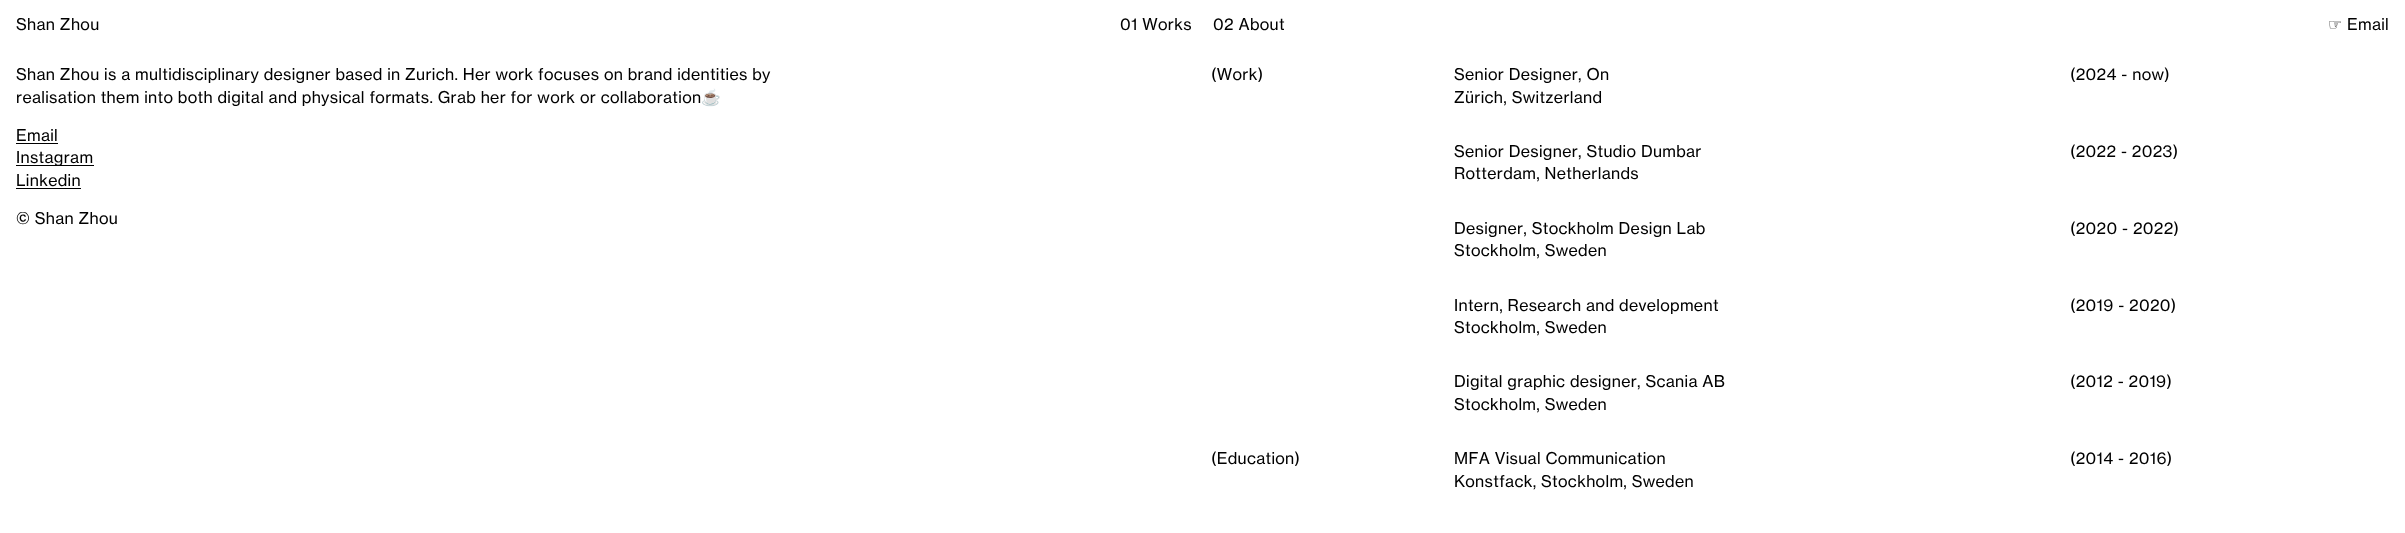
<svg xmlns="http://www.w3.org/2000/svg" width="2405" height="533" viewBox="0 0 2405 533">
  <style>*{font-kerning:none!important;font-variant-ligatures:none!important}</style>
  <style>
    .t1 { font: 16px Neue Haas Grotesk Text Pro; letter-spacing: 0.32px; fill: #000; }
    .t2 { font: 16px DejaVu Sans; letter-spacing: 0.32px; fill: #000; }
    .t3 { font: 16px Noto Color Emoji; letter-spacing: 0.32px; fill: #000; }
  </style>
  <rect width="100%" height="100%" fill="#fff"/>
  <text x="16" y="30" class="t1">Shan Zhou</text>
  <text x="1120" y="30" class="t1">01 Works</text>
  <text x="1213" y="30" class="t1">02 About</text>
  <text x="2328" y="30" class="t2">☞</text>
  <text x="2347" y="30" class="t1">Email</text>
  <text x="16" y="80" class="t1">Shan Zhou is a multidisciplinary designer based in Zurich. Her work focuses on brand identities by</text>
  <text x="16" y="103" class="t1">realisation them into both digital and physical formats. Grab her for work or collaboration</text>
  <text x="701" y="103" class="t3">☕</text>
  <text x="16" y="141" class="t1">Email</text>
  <rect x="16" y="143" width="42" height="1" fill="#000"/>
  <rect x="16" y="165" width="78" height="1" fill="#000"/>
  <text x="16" y="163" class="t1">Instagram</text>
  <text x="16" y="186" class="t1">Linkedin</text>
  <rect x="16" y="188" width="65" height="1" fill="#000"/>
  <text x="16" y="224" class="t1">© Shan Zhou</text>
  <text x="1211" y="80" class="t1">(Work)</text>
  <text x="1454" y="80" class="t1">Senior Designer, On</text>
  <text x="1454" y="103" class="t1">Zürich, Switzerland</text>
  <text x="2070" y="80" class="t1">(2024 - now)</text>
  <text x="1454" y="157" class="t1">Senior Designer, Studio Dumbar</text>
  <text x="1454" y="179" class="t1">Rotterdam, Netherlands</text>
  <text x="2070" y="157" class="t1">(2022 - 2023)</text>
  <text x="1454" y="234" class="t1">Designer, Stockholm Design Lab</text>
  <text x="1454" y="256" class="t1">Stockholm, Sweden</text>
  <text x="2070" y="234" class="t1">(2020 - 2022)</text>
  <text x="1454" y="311" class="t1">Intern, Research and development</text>
  <text x="1454" y="333" class="t1">Stockholm, Sweden</text>
  <text x="2070" y="311" class="t1">(2019 - 2020)</text>
  <text x="1454" y="387" class="t1">Digital graphic designer, Scania AB</text>
  <text x="1454" y="410" class="t1">Stockholm, Sweden</text>
  <text x="2070" y="387" class="t1">(2012 - 2019)</text>
  <text x="1211" y="464" class="t1">(Education)</text>
  <text x="1454" y="464" class="t1">MFA Visual Communication</text>
  <text x="1454" y="487" class="t1">Konstfack, Stockholm, Sweden</text>
  <text x="2070" y="464" class="t1">(2014 - 2016)</text>
</svg>
